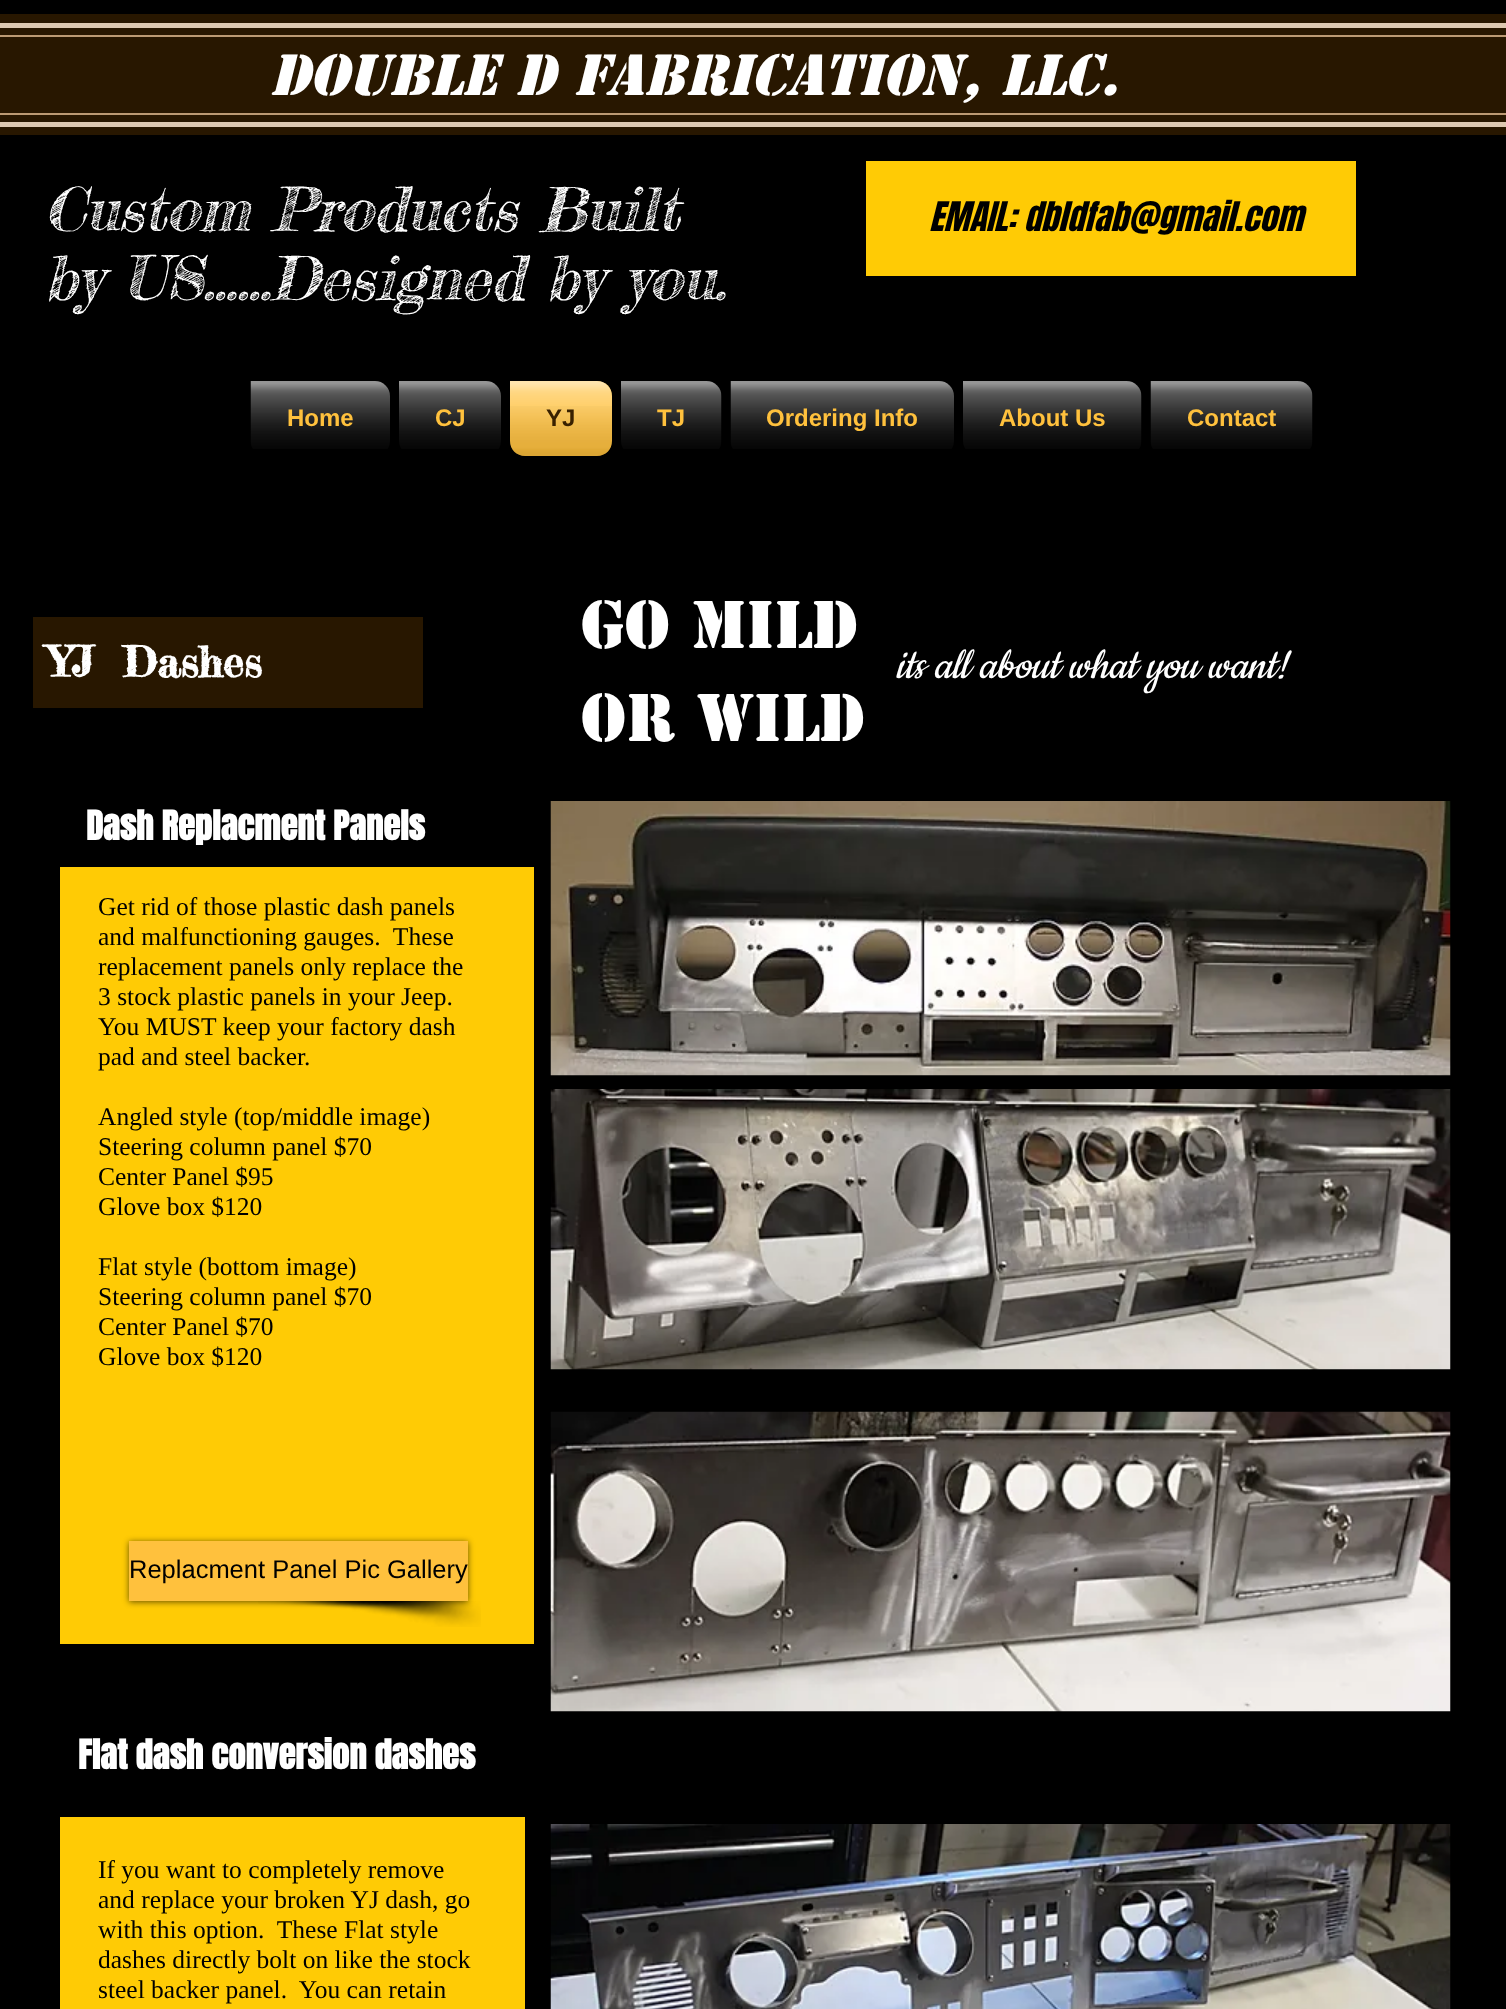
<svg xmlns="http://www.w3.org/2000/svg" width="1506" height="2009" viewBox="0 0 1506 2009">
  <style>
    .t1 { font: italic bold 54px 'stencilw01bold'; fill: #fff; }
    .t2 { font: italic 60px Fredericka the Great; fill: #fff; }
    .t3 { font: italic 34.5px Anton; fill: #000; }
    .t4 { font: bold 24px Liberation Sans; fill: #ffc13d; }
    .t5 { font: bold 24px Liberation Sans; fill: #392100; }
    .t6 { font: bold 42px Fredericka the Great; fill: #fff; }
    .t7 { font: bold 63px 'stencilw01bold'; fill: #fff; }
    .t8 { font: italic 48px Cookie; fill: #fff; }
    .t9 { font: bold 34.5px Anton; fill: #fff; }
    .t10 { font: 25.5px Liberation Serif; fill: #000; }
    .t11 { font: 25.5px Liberation Sans; fill: #000; }
  </style>
  <rect width="100%" height="100%" fill="#000"/>
  <rect x="0" y="14" width="1506" height="121" fill="#281700"/>
  <rect x="0" y="23" width="1506" height="5" fill="#ddc9b2"/>
  <rect x="0" y="122" width="1506" height="5" fill="#ddc9b2"/>
  <rect x="0" y="35" width="1506" height="2" fill="#bc9a73"/>
  <rect x="0" y="113" width="1506" height="2" fill="#bc9a73"/>
  <text x="270" y="95" class="t1">Double D Fabrication, llc.</text>
  <text x="44" y="231" class="t2">Custom Products Built</text>
  <text x="44" y="300" class="t2">by US......Designed by you.</text>
  <rect x="866" y="161" width="490" height="115" fill="#ffcb05"/>
  <text x="929" y="231" class="t3">EMAIL: dbldfab@gmail.com</text>
  <image x="250" y="381" width="140" height="68" href="images/1.png"/>
  <text x="287" y="426" class="t4">Home</text>
  <image x="399" y="381" width="102" height="68" href="images/2.png"/>
  <text x="435" y="426" class="t4">CJ</text>
  <path d="M510 381H597C605.5 381 612 387.5 612 396V441C612 449.5 605.5 456 597 456H525C516.5 456 510 449.5 510 441Z" fill="#ffc13d"/>
  <image x="510" y="381" width="102" height="68" href="images/3.png"/>
  <image x="510" y="406" width="102" height="50" href="images/4.png"/>
  <text x="546" y="426" class="t5">YJ</text>
  <image x="621" y="381" width="101" height="68" href="images/5.png"/>
  <text x="657" y="426" class="t4">TJ</text>
  <image x="730" y="381" width="224" height="68" href="images/6.png"/>
  <text x="766" y="426" class="t4">Ordering Info</text>
  <image x="963" y="381" width="179" height="68" href="images/7.png"/>
  <text x="999" y="426" class="t4">About Us</text>
  <image x="1150" y="381" width="163" height="68" href="images/8.png"/>
  <text x="1187" y="426" class="t4">Contact</text>
  <rect x="33" y="617" width="390" height="91" fill="#281700"/>
  <text x="48" y="677" class="t6" xml:space="preserve">YJ  Dashes</text>
  <text x="581" y="648" class="t7">Go Mild</text>
  <text x="581" y="741" class="t7">or Wild</text>
  <text x="896" y="678" class="t8">its all about what you want!</text>
  <text x="86" y="840" class="t9">Dash Replacment Panels</text>
  <image x="550" y="801" width="901" height="275" href="images/9.png"/>
  <rect x="60" y="867" width="474" height="777" fill="#ffcb05"/>
  <text x="98" y="915" class="t10">Get rid of those plastic dash panels</text>
  <text x="98" y="945" class="t10" xml:space="preserve">and malfunctioning gauges.  These</text>
  <text x="98" y="975" class="t10">replacement panels only replace the</text>
  <text x="98" y="1005" class="t10">3 stock plastic panels in your Jeep.</text>
  <text x="98" y="1035" class="t10">You MUST keep your factory dash</text>
  <text x="98" y="1065" class="t10">pad and steel backer.</text>
  <text x="98" y="1125" class="t10">Angled style (top/middle image)</text>
  <text x="98" y="1155" class="t10">Steering column panel $70</text>
  <text x="98" y="1185" class="t10">Center Panel $95</text>
  <text x="98" y="1215" class="t10">Glove box $120</text>
  <text x="98" y="1275" class="t10">Flat style (bottom image)</text>
  <text x="98" y="1305" class="t10">Steering column panel $70</text>
  <text x="98" y="1335" class="t10">Center Panel $70</text>
  <text x="98" y="1365" class="t10">Glove box $120</text>
  <image x="258" y="1601" width="223" height="26" href="images/10.png"/>
  <rect x="129" y="1542" width="339" height="60" fill="#00000099" filter="blur(3px)"/>
  <rect x="129" y="1541" width="339" height="60" fill="#ffc13d"/>
  <text x="129" y="1578" class="t11">Replacment Panel Pic Gallery</text>
  <image x="550" y="1089" width="901" height="281" href="images/11.png"/>
  <image x="550" y="1411" width="901" height="301" href="images/12.png"/>
  <text x="78" y="1769" class="t9">Flat dash conversion dashes</text>
  <rect x="60" y="1817" width="465" height="192" fill="#ffcb05"/>
  <text x="98" y="1878" class="t10">If you want to completely remove</text>
  <text x="98" y="1908" class="t10">and replace your broken YJ dash, go</text>
  <text x="98" y="1938" class="t10" xml:space="preserve">with this option.  These Flat style</text>
  <text x="98" y="1968" class="t10">dashes directly bolt on like the stock</text>
  <text x="98" y="1998" class="t10" xml:space="preserve">steel backer panel.  You can retain</text>
  <image x="550" y="1824" width="901" height="185" href="images/13.png"/>
</svg>
